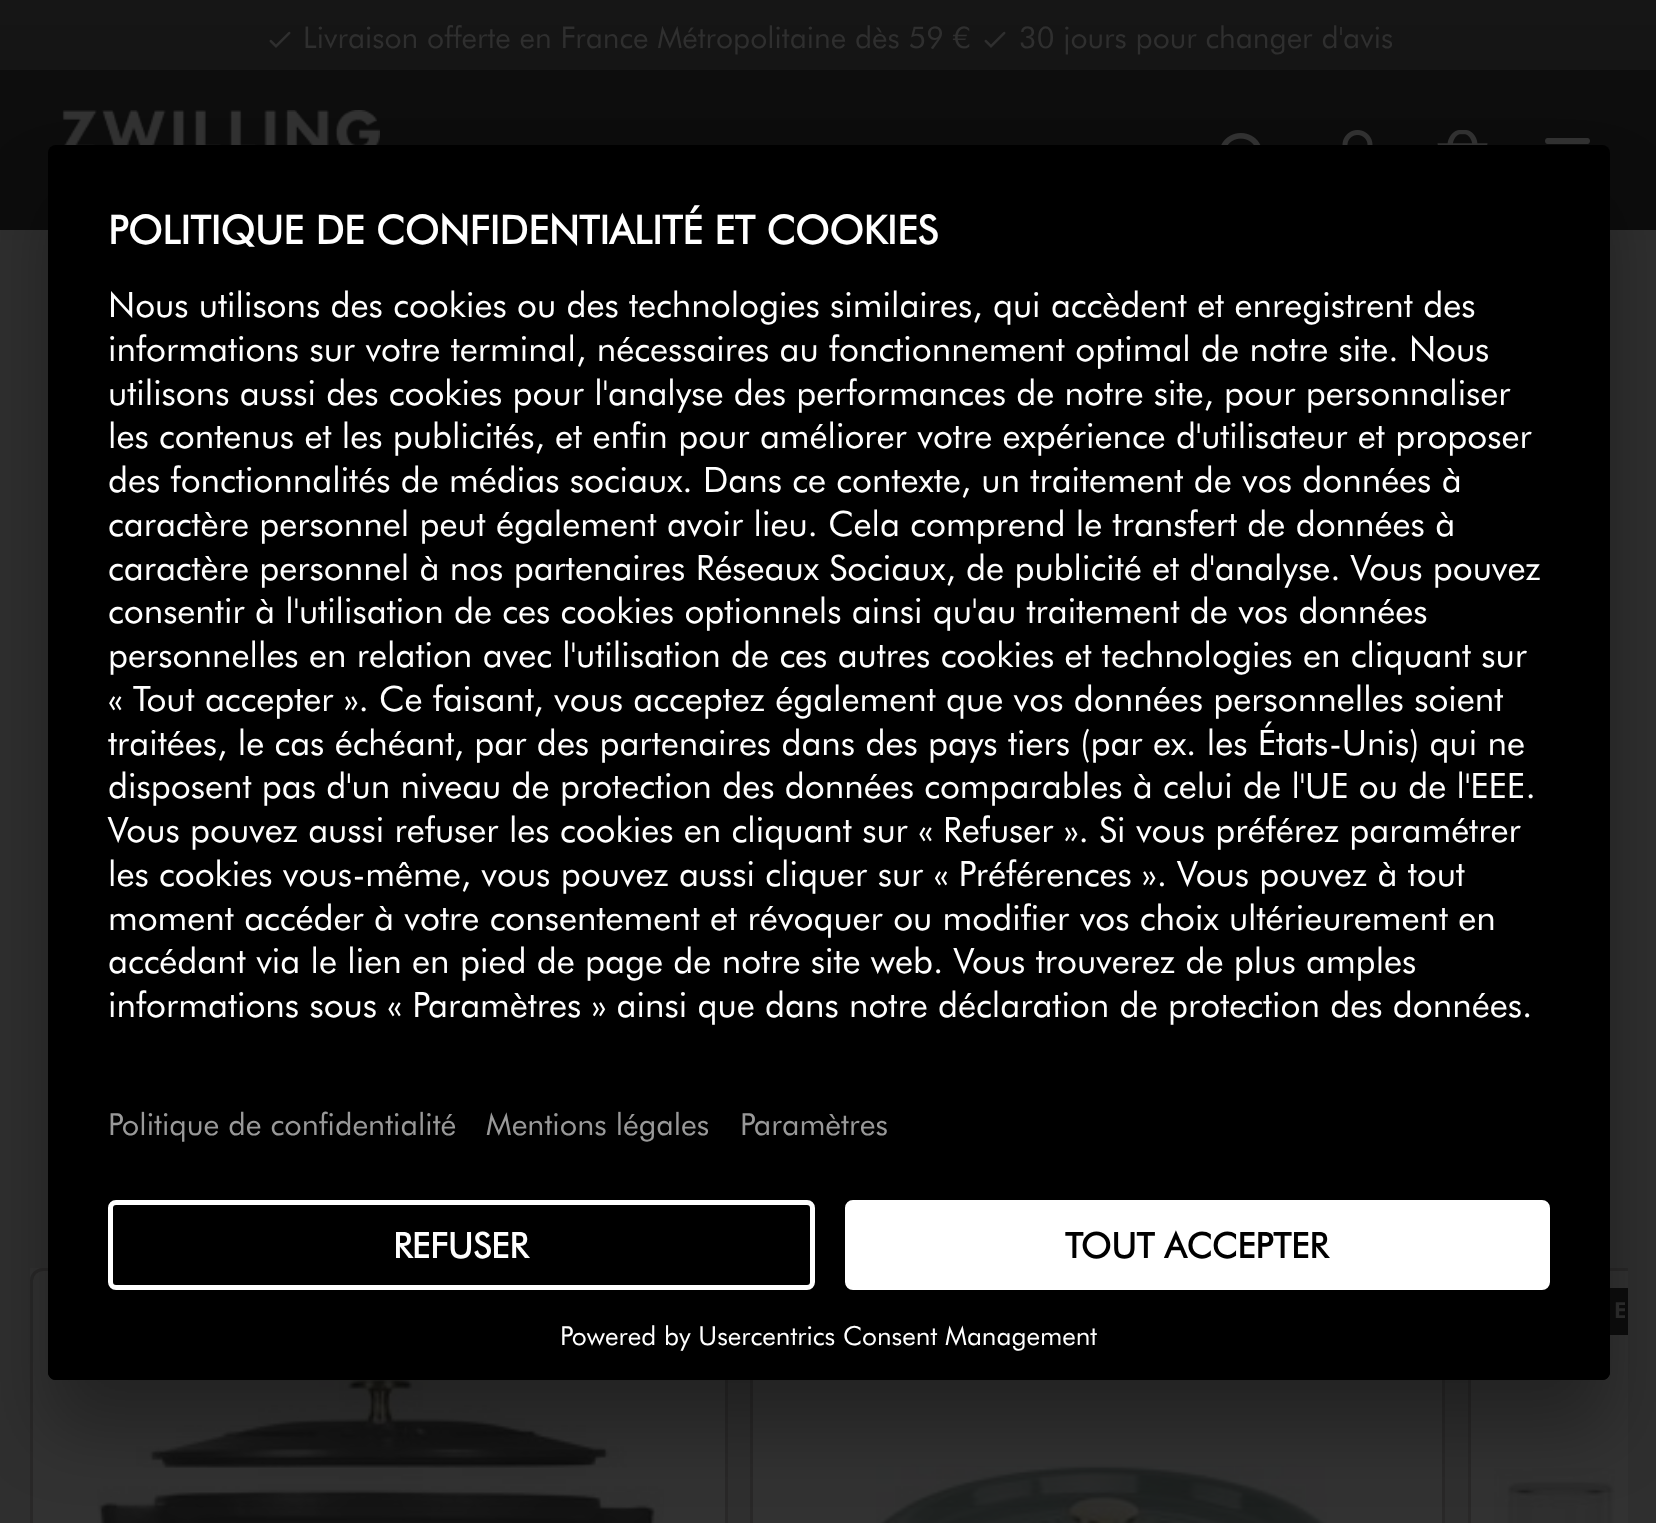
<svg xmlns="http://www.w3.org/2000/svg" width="1656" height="1523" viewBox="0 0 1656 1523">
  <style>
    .t1 { font: 30px Futura; fill: #2f2f2f; }
    .t2 { font: bold 22px Futura; fill: #2f2f2f; }
    .t3 { font: bold 39.4px 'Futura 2'; fill: #fff; }
    .t4 { font: 35px Futura; fill: #fff; }
    .t5 { font: 30.6px Futura; fill: #999; }
    .t6 { font: bold 35px 'Futura 2'; fill: #fff; }
    .t7 { font: bold 35px 'Futura 2'; fill: #000; }
    .t8 { font: 26.25px Futura; fill: #fff; }
  </style>
  <defs>
    <clipPath id="clip1"><rect x="1468" y="1268" width="160" height="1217"/></clipPath>
    <clipPath id="clip2"><rect x="108" y="273" width="1442" height="762"/></clipPath>
  </defs>
  <rect width="100%" height="100%" fill="#2f2f2f"/>
  <rect x="0" y="0" width="1656" height="25" fill="#161616"/>
  <rect x="0" y="25" width="1656" height="45" fill="#151515"/>
  <image x="269" y="31" width="22" height="17" href="images/1.png"/>
  <text x="303" y="48" class="t1">Livraison offerte en France Métropolitaine dès 59 €</text>
  <image x="984" y="31" width="22" height="17" href="images/1.png"/>
  <text x="1019" y="48" class="t1">30 jours pour changer d'avis</text>
  <rect x="0" y="70" width="1656" height="160" fill="#0d0d0d"/>
  <image x="62" y="110" width="318" height="35" href="images/2.png"/>
  <image x="1221" y="133" width="40" height="12" href="images/3.png"/>
  <image x="1342" y="130" width="31" height="15" href="images/4.png"/>
  <image x="1437" y="130" width="51" height="15" href="images/5.png"/>
  <image x="1545" y="138" width="45" height="6" href="images/6.png"/>
  <rect x="30" y="1268" width="695" height="255" fill="#323232"/>
  <rect x="31.5" y="1269.5" width="695" height="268" rx="11.5" fill="none" stroke="#292828" stroke-width="3"/>
  <image x="97" y="1380" width="567" height="143" href="images/7.png"/>
  <rect x="753" y="1380" width="689" height="143" fill="#323232"/>
  <rect x="751.5" y="1269.5" width="692" height="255" fill="none" stroke="#292828" stroke-width="3"/>
  <image x="876" y="1464" width="451" height="59" href="images/8.png"/>
  <rect x="1471" y="1271" width="157" height="252" fill="#323232"/>
  <g clip-path="url(#clip1)">
    <rect x="1469.5" y="1269.5" width="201" height="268" rx="11.5" fill="none" stroke="#292828" stroke-width="3"/>
  </g>
  <image x="1494" y="1468" width="121" height="55" href="images/9.png"/>
  <rect x="1610" y="1288" width="18" height="47" fill="#0d0d0d"/>
  <text x="1614" y="1318" class="t2">E</text>
  <rect x="48" y="195" width="1562" height="1235" rx="8" fill="#0000004d" filter="blur(35px)"/>
  <rect x="48" y="145" width="1562" height="1235" rx="8" fill="#000"/>
  <text x="108" y="244" class="t3">POLITIQUE DE CONFIDENTIALITÉ ET COOKIES</text>
  <text x="108" y="317" class="t4">Nous utilisons des cookies ou des technologies similaires, qui accèdent et enregistrent des</text>
  <text x="108" y="361" class="t4">informations sur votre terminal, nécessaires au fonctionnement optimal de notre site. Nous</text>
  <text x="108" y="405" class="t4">utilisons aussi des cookies pour l'analyse des performances de notre site, pour personnaliser</text>
  <text x="108" y="448" class="t4">les contenus et les publicités, et enfin pour améliorer votre expérience d'utilisateur et proposer</text>
  <text x="108" y="492" class="t4">des fonctionnalités de médias sociaux. Dans ce contexte, un traitement de vos données à</text>
  <text x="108" y="536" class="t4">caractère personnel peut également avoir lieu. Cela comprend le transfert de données à</text>
  <text x="108" y="580" class="t4">caractère personnel à nos partenaires Réseaux Sociaux, de publicité et d'analyse. Vous pouvez</text>
  <text x="108" y="623" class="t4">consentir à l'utilisation de ces cookies optionnels ainsi qu'au traitement de vos données</text>
  <text x="108" y="667" class="t4">personnelles en relation avec l'utilisation de ces autres cookies et technologies en cliquant sur</text>
  <text x="108" y="711" class="t4">« Tout accepter ». Ce faisant, vous acceptez également que vos données personnelles soient</text>
  <g clip-path="url(#clip2)">
    <text x="108" y="755" class="t4">traitées, le cas échéant, par des partenaires dans des pays tiers (par ex. les États-Unis) qui ne</text>
  </g>
  <text x="108" y="798" class="t4">disposent pas d'un niveau de protection des données comparables à celui de l'UE ou de l'EEE.</text>
  <text x="108" y="842" class="t4">Vous pouvez aussi refuser les cookies en cliquant sur « Refuser ». Si vous préférez paramétrer</text>
  <text x="108" y="886" class="t4">les cookies vous-même, vous pouvez aussi cliquer sur « Préférences ». Vous pouvez à tout</text>
  <text x="108" y="930" class="t4">moment accéder à votre consentement et révoquer ou modifier vos choix ultérieurement en</text>
  <text x="108" y="973" class="t4">accédant via le lien en pied de page de notre site web. Vous trouverez de plus amples</text>
  <text x="108" y="1017" class="t4">informations sous « Paramètres » ainsi que dans notre déclaration de protection des données.</text>
  <text x="108" y="1135" class="t5">Politique de confidentialité</text>
  <text x="486" y="1135" class="t5">Mentions légales</text>
  <text x="740" y="1135" class="t5">Paramètres</text>
  <path d="M48 1180H1610V1372C1610 1376.5 1606.5 1380 1602 1380H56C51.5 1380 48 1376.5 48 1372Z" fill="#000"/>
  <rect x="110.5" y="1202.5" width="702" height="85" rx="5.5" fill="none" stroke="#fff" stroke-width="5"/>
  <text x="393" y="1258" class="t6">REFUSER</text>
  <rect x="847.5" y="1202.5" width="700" height="85" rx="5.5" fill="#fff" stroke="#fff" stroke-width="5"/>
  <text x="1065" y="1258" class="t7">TOUT ACCEPTER</text>
  <text x="560" y="1345" class="t8">Powered by Usercentrics Consent Management</text>
</svg>
